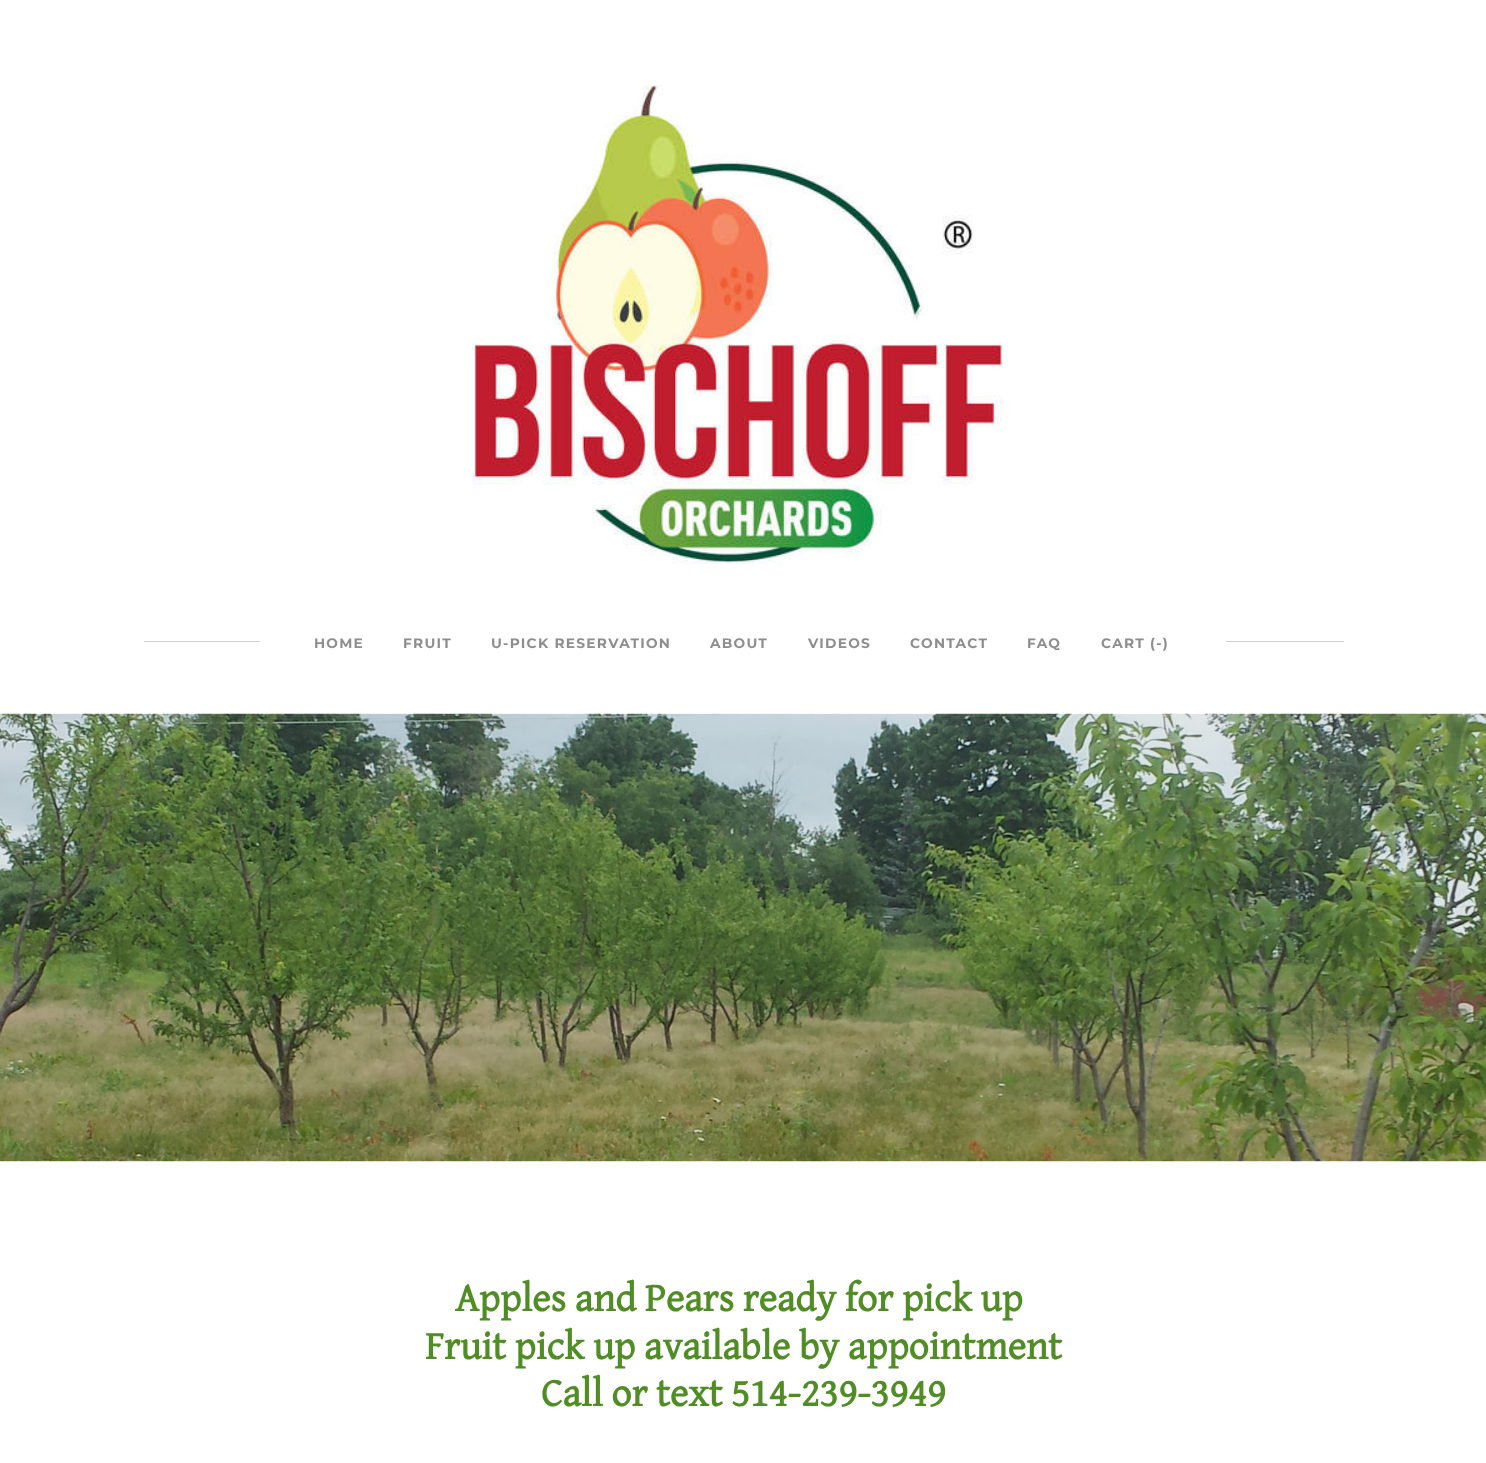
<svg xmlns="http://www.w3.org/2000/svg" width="1486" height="1463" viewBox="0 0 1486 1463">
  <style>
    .t1 { font: 100 13.75px Montserrat; letter-spacing: 1.25px; fill: #8e8e8e; }
    .t2 { font: bold 40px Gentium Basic; fill: #508d24; }
  </style>
  <rect width="100%" height="100%" fill="#fff"/>
  <image x="472" y="85" width="531" height="480" href="images/1.png"/>
  <rect x="144" y="641" width="116" height="1" fill="#d0d0d0"/>
  <text x="314" y="648" class="t1">HOME</text>
  <text x="403" y="648" class="t1">FRUIT</text>
  <text x="491" y="648" class="t1">U-PICK RESERVATION</text>
  <text x="710" y="648" class="t1">ABOUT</text>
  <text x="808" y="648" class="t1">VIDEOS</text>
  <text x="910" y="648" class="t1">CONTACT</text>
  <text x="1027" y="648" class="t1">FAQ</text>
  <text x="1101" y="648" class="t1">CART (-)</text>
  <rect x="1226" y="641" width="118" height="1" fill="#d0d0d0"/>
  <image x="0" y="713" width="1486" height="449" href="images/2.png"/>
  <text x="455" y="1311" class="t2">Apples and Pears ready for pick up</text>
  <text x="425" y="1359" class="t2">Fruit pick up available by appointment</text>
  <text x="541" y="1406" class="t2">Call or text 514-239-3949</text>
</svg>
